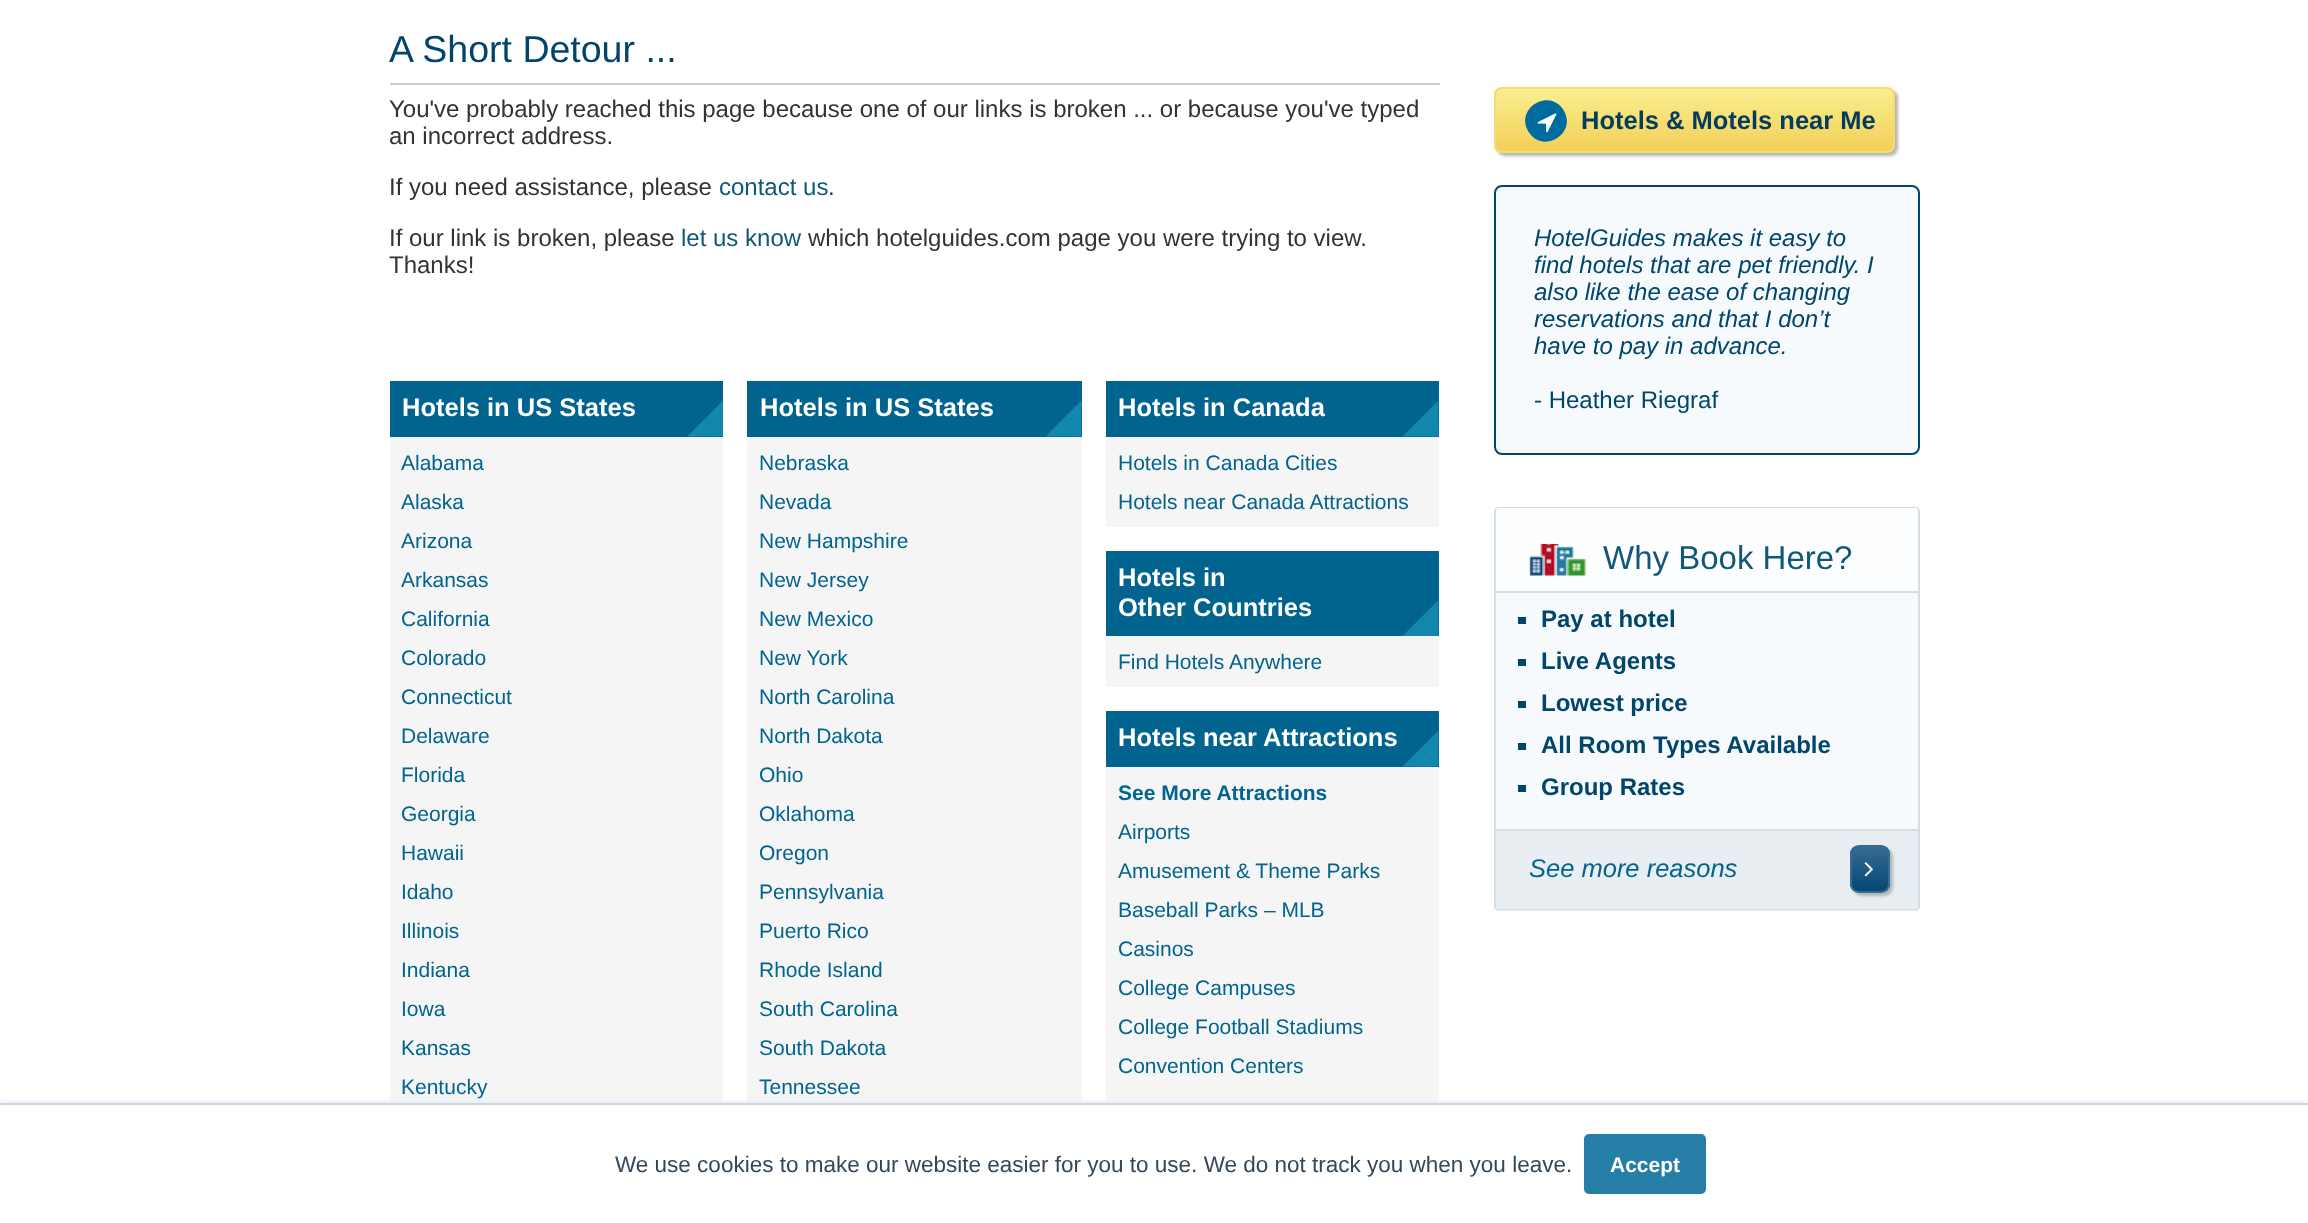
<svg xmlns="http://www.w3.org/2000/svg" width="2308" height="1223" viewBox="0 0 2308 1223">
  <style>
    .t1 { font: 37.5px Liberation Sans; fill: #00456c; }
    .t2 { font: 24px Liberation Sans; fill: #333; }
    .t3 { font: 24px Liberation Sans; fill: #0f5878; }
    .t4 { font: bold 25.5px Liberation Sans; fill: #fff; }
    .t5 { font: 21px Liberation Sans; fill: #00648e; }
    .t6 { font: bold 21px Liberation Sans; fill: #00648e; }
    .t7 { font: bold 25.5px Liberation Sans; fill: #033c5d; }
    .t8 { font: italic 24px Liberation Sans; fill: #00456c; }
    .t9 { font: 24px Liberation Sans; fill: #00456c; }
    .t10 { font: 33px Liberation Sans; fill: #0f5878; }
    .t11 { font: bold 24px Liberation Sans; fill: #00456c; }
    .t12 { font: italic 25.5px Liberation Sans; fill: #00648e; }
    .t13 { font: 22.5px Liberation Sans; fill: #33475b; }
    .t14 { font: bold 21px Liberation Sans; fill: #fff; }
  </style>
  <defs>
    <clipPath id="clip1"><rect x="1494" y="87" width="401" height="66" rx="8"/></clipPath>
    <linearGradient id="g1" gradientUnits="userSpaceOnUse" x1="1694" y1="88" x2="1694" y2="152"><stop offset="0" stop-color="#faef91"/><stop offset="1" stop-color="#f3cf57"/></linearGradient>
    <clipPath id="clip2"><rect x="1850" y="845" width="40" height="48" rx="9"/></clipPath>
    <linearGradient id="g2" gradientUnits="userSpaceOnUse" x1="1870" y1="846" x2="1870" y2="891"><stop offset="0" stop-color="#356c93"/><stop offset="1" stop-color="#064775"/></linearGradient>
  </defs>
  <rect width="100%" height="100%" fill="#fff"/>
  <text x="389" y="62" class="t1">A Short Detour ...</text>
  <rect x="390" y="83" width="1050" height="2" fill="#ccc"/>
  <text x="389" y="117" class="t2">You've probably reached this page because one of our links is broken ... or because you've typed</text>
  <text x="389" y="144" class="t2">an incorrect address.</text>
  <text x="389" y="195" class="t2">If you need assistance, please</text>
  <text x="719" y="195" class="t3">contact us</text>
  <text x="828" y="195" class="t2">.</text>
  <text x="389" y="246" class="t2">If our link is broken, please</text>
  <text x="681" y="246" class="t3">let us know</text>
  <text x="808" y="246" class="t2">which hotelguides.com page you were trying to view.</text>
  <text x="389" y="273" class="t2">Thanks!</text>
  <rect x="390" y="381" width="333" height="56" fill="#00648e"/>
  <text x="402" y="416" class="t4">Hotels in US States</text>
  <path d="M723 400.5V436.5L705 418.5Z" fill="#1289ac"/>
  <path d="M723 436.5H687L705 418.5Z" fill="#1289ac"/>
  <rect x="390" y="437" width="333" height="666" fill="#f5f5f5"/>
  <text x="401" y="470" class="t5">Alabama</text>
  <text x="401" y="509" class="t5">Alaska</text>
  <text x="401" y="548" class="t5">Arizona</text>
  <text x="401" y="587" class="t5">Arkansas</text>
  <text x="401" y="626" class="t5">California</text>
  <text x="401" y="665" class="t5">Colorado</text>
  <text x="401" y="704" class="t5">Connecticut</text>
  <text x="401" y="743" class="t5">Delaware</text>
  <text x="401" y="782" class="t5">Florida</text>
  <text x="401" y="821" class="t5">Georgia</text>
  <text x="401" y="860" class="t5">Hawaii</text>
  <text x="401" y="899" class="t5">Idaho</text>
  <text x="401" y="938" class="t5">Illinois</text>
  <text x="401" y="977" class="t5">Indiana</text>
  <text x="401" y="1016" class="t5">Iowa</text>
  <text x="401" y="1055" class="t5">Kansas</text>
  <text x="401" y="1094" class="t5">Kentucky</text>
  <rect x="747" y="381" width="335" height="56" fill="#00648e"/>
  <text x="760" y="416" class="t4">Hotels in US States</text>
  <path d="M1081.5 400.5V436.5L1063.5 418.5Z" fill="#1289ac"/>
  <path d="M1081.5 436.5H1045.5L1063.5 418.5Z" fill="#1289ac"/>
  <rect x="747" y="437" width="335" height="666" fill="#f5f5f5"/>
  <text x="759" y="470" class="t5">Nebraska</text>
  <text x="759" y="509" class="t5">Nevada</text>
  <text x="759" y="548" class="t5">New Hampshire</text>
  <text x="759" y="587" class="t5">New Jersey</text>
  <text x="759" y="626" class="t5">New Mexico</text>
  <text x="759" y="665" class="t5">New York</text>
  <text x="759" y="704" class="t5">North Carolina</text>
  <text x="759" y="743" class="t5">North Dakota</text>
  <text x="759" y="782" class="t5">Ohio</text>
  <text x="759" y="821" class="t5">Oklahoma</text>
  <text x="759" y="860" class="t5">Oregon</text>
  <text x="759" y="899" class="t5">Pennsylvania</text>
  <text x="759" y="938" class="t5">Puerto Rico</text>
  <text x="759" y="977" class="t5">Rhode Island</text>
  <text x="759" y="1016" class="t5">South Carolina</text>
  <text x="759" y="1055" class="t5">South Dakota</text>
  <text x="759" y="1094" class="t5">Tennessee</text>
  <rect x="1106" y="381" width="333" height="56" fill="#00648e"/>
  <text x="1118" y="416" class="t4">Hotels in Canada</text>
  <path d="M1438.5 400.5V436.5L1420.5 418.5Z" fill="#1289ac"/>
  <path d="M1438.5 436.5H1402.5L1420.5 418.5Z" fill="#1289ac"/>
  <rect x="1106" y="437" width="333" height="90" fill="#f5f5f5"/>
  <text x="1118" y="470" class="t5">Hotels in Canada Cities</text>
  <text x="1118" y="509" class="t5">Hotels near Canada Attractions</text>
  <rect x="1106" y="551" width="333" height="85" fill="#00648e"/>
  <text x="1118" y="586" class="t4">Hotels in</text>
  <text x="1118" y="616" class="t4">Other Countries</text>
  <path d="M1438.5 600V636L1420.5 618Z" fill="#1289ac"/>
  <path d="M1438.5 636H1402.5L1420.5 618Z" fill="#1289ac"/>
  <rect x="1106" y="636" width="333" height="51" fill="#f5f5f5"/>
  <text x="1118" y="669" class="t5">Find Hotels Anywhere</text>
  <rect x="1106" y="711" width="333" height="56" fill="#00648e"/>
  <text x="1118" y="746" class="t4">Hotels near Attractions</text>
  <path d="M1438.5 730.5V766.5L1420.5 748.5Z" fill="#1289ac"/>
  <path d="M1438.5 766.5H1402.5L1420.5 748.5Z" fill="#1289ac"/>
  <rect x="1106" y="767" width="333" height="336" fill="#f5f5f5"/>
  <text x="1118" y="800" class="t6">See More Attractions</text>
  <text x="1118" y="839" class="t5">Airports</text>
  <text x="1118" y="878" class="t5">Amusement &amp; Theme Parks</text>
  <text x="1118" y="917" class="t5">Baseball Parks – MLB</text>
  <text x="1118" y="956" class="t5">Casinos</text>
  <text x="1118" y="995" class="t5">College Campuses</text>
  <text x="1118" y="1034" class="t5">College Football Stadiums</text>
  <text x="1118" y="1073" class="t5">Convention Centers</text>
  <rect x="1497" y="90" width="401" height="66" rx="8" fill="#b4b5b5" filter="blur(1.5px)"/>
  <g clip-path="url(#clip1)">
    <rect x="1494" y="89" width="401" height="63" fill="url(#g1)"/>
  </g>
  <rect x="1495" y="88" width="399" height="64" rx="7" fill="none" stroke="#f6db6d" stroke-width="2"/>
  <path d="M1564 111C1577 134 1542 155 1528 131C1515 108 1550 87 1564 111Z" fill="#006b9e"/>
  <image x="1537" y="113" width="20" height="20" href="images/1.png"/>
  <text x="1581" y="129" class="t7">Hotels &amp; Motels near Me</text>
  <rect x="1495" y="186" width="424" height="268" rx="7" fill="#f7fafc" stroke="#00456c" stroke-width="2"/>
  <text x="1534" y="246" class="t8">HotelGuides makes it easy to</text>
  <text x="1534" y="273" class="t8">find hotels that are pet friendly. I</text>
  <text x="1534" y="300" class="t8">also like the ease of changing</text>
  <text x="1534" y="327" class="t8">reservations and that I don’t</text>
  <text x="1534" y="354" class="t8">have to pay in advance.</text>
  <text x="1534" y="408" class="t9">- Heather Riegraf</text>
  <path d="M1499 507H1915C1918 507 1920 509 1920 512V591H1494V512C1494 509 1496 507 1499 507Z" fill="#fcfeff"/>
  <path d="M1498 507H1916C1918 507 1920 509 1920 512V591H1494V512C1494 509 1496 507 1498 507ZM1498 508H1916C1917 508 1918 510 1918 512V591H1496V512C1496 510 1497 508 1498 508Z" fill="#d3dfe7" fill-rule="evenodd"/>
  <image x="1529" y="544" width="57" height="32" href="images/2.png"/>
  <text x="1603" y="569" class="t10">Why Book Here?</text>
  <rect x="1495" y="592" width="424" height="238" fill="#f7fafc" stroke="#d3dfe7" stroke-width="2"/>
  <rect x="1518" y="617" width="8" height="7" fill="#00456c"/>
  <text x="1541" y="627" class="t11">Pay at hotel</text>
  <rect x="1518" y="659" width="8" height="7" fill="#00456c"/>
  <text x="1541" y="669" class="t11">Live Agents</text>
  <rect x="1518" y="701" width="8" height="7" fill="#00456c"/>
  <text x="1541" y="711" class="t11">Lowest price</text>
  <rect x="1518" y="743" width="8" height="7" fill="#00456c"/>
  <text x="1541" y="753" class="t11">All Room Types Available</text>
  <rect x="1518" y="785" width="8" height="7" fill="#00456c"/>
  <text x="1541" y="795" class="t11">Group Rates</text>
  <path d="M1494 831H1920V906C1920 909 1918 911 1915 911H1499C1496 911 1494 909 1494 906Z" fill="#e8eef2"/>
  <path d="M1494 831H1920V906C1920 908 1918 910 1916 910H1498C1496 910 1494 908 1494 906ZM1496 831H1918V906C1918 908 1917 909 1916 909H1498C1497 909 1496 908 1496 906Z" fill="#d3dfe7" fill-rule="evenodd"/>
  <text x="1529" y="877" class="t12">See more reasons</text>
  <rect x="1853" y="848" width="40" height="48" rx="9" fill="#b4b5b5" filter="blur(1.5px)"/>
  <g clip-path="url(#clip2)">
    <rect x="1850" y="846" width="40" height="45" fill="url(#g2)"/>
  </g>
  <rect x="1851" y="846" width="38" height="46" rx="8" fill="none" stroke="#356c93" stroke-width="2"/>
  <image x="1864" y="862" width="9" height="15" href="images/3.png"/>
  <rect x="0" y="1101" width="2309" height="122" fill="#eaf0f6" filter="blur(2px)"/>
  <rect x="0" y="1105" width="2308" height="118" fill="#fff"/>
  <rect x="0" y="1103" width="2308" height="2" fill="#cbd6e2"/>
  <text x="615" y="1172" class="t13">We use cookies to make our website easier for you to use. We do not track you when you leave.</text>
  <rect x="1585" y="1135" width="120" height="58" rx="4" fill="#257ea5" stroke="#257ea5" stroke-width="2"/>
  <text x="1610" y="1172" class="t14">Accept</text>
</svg>
